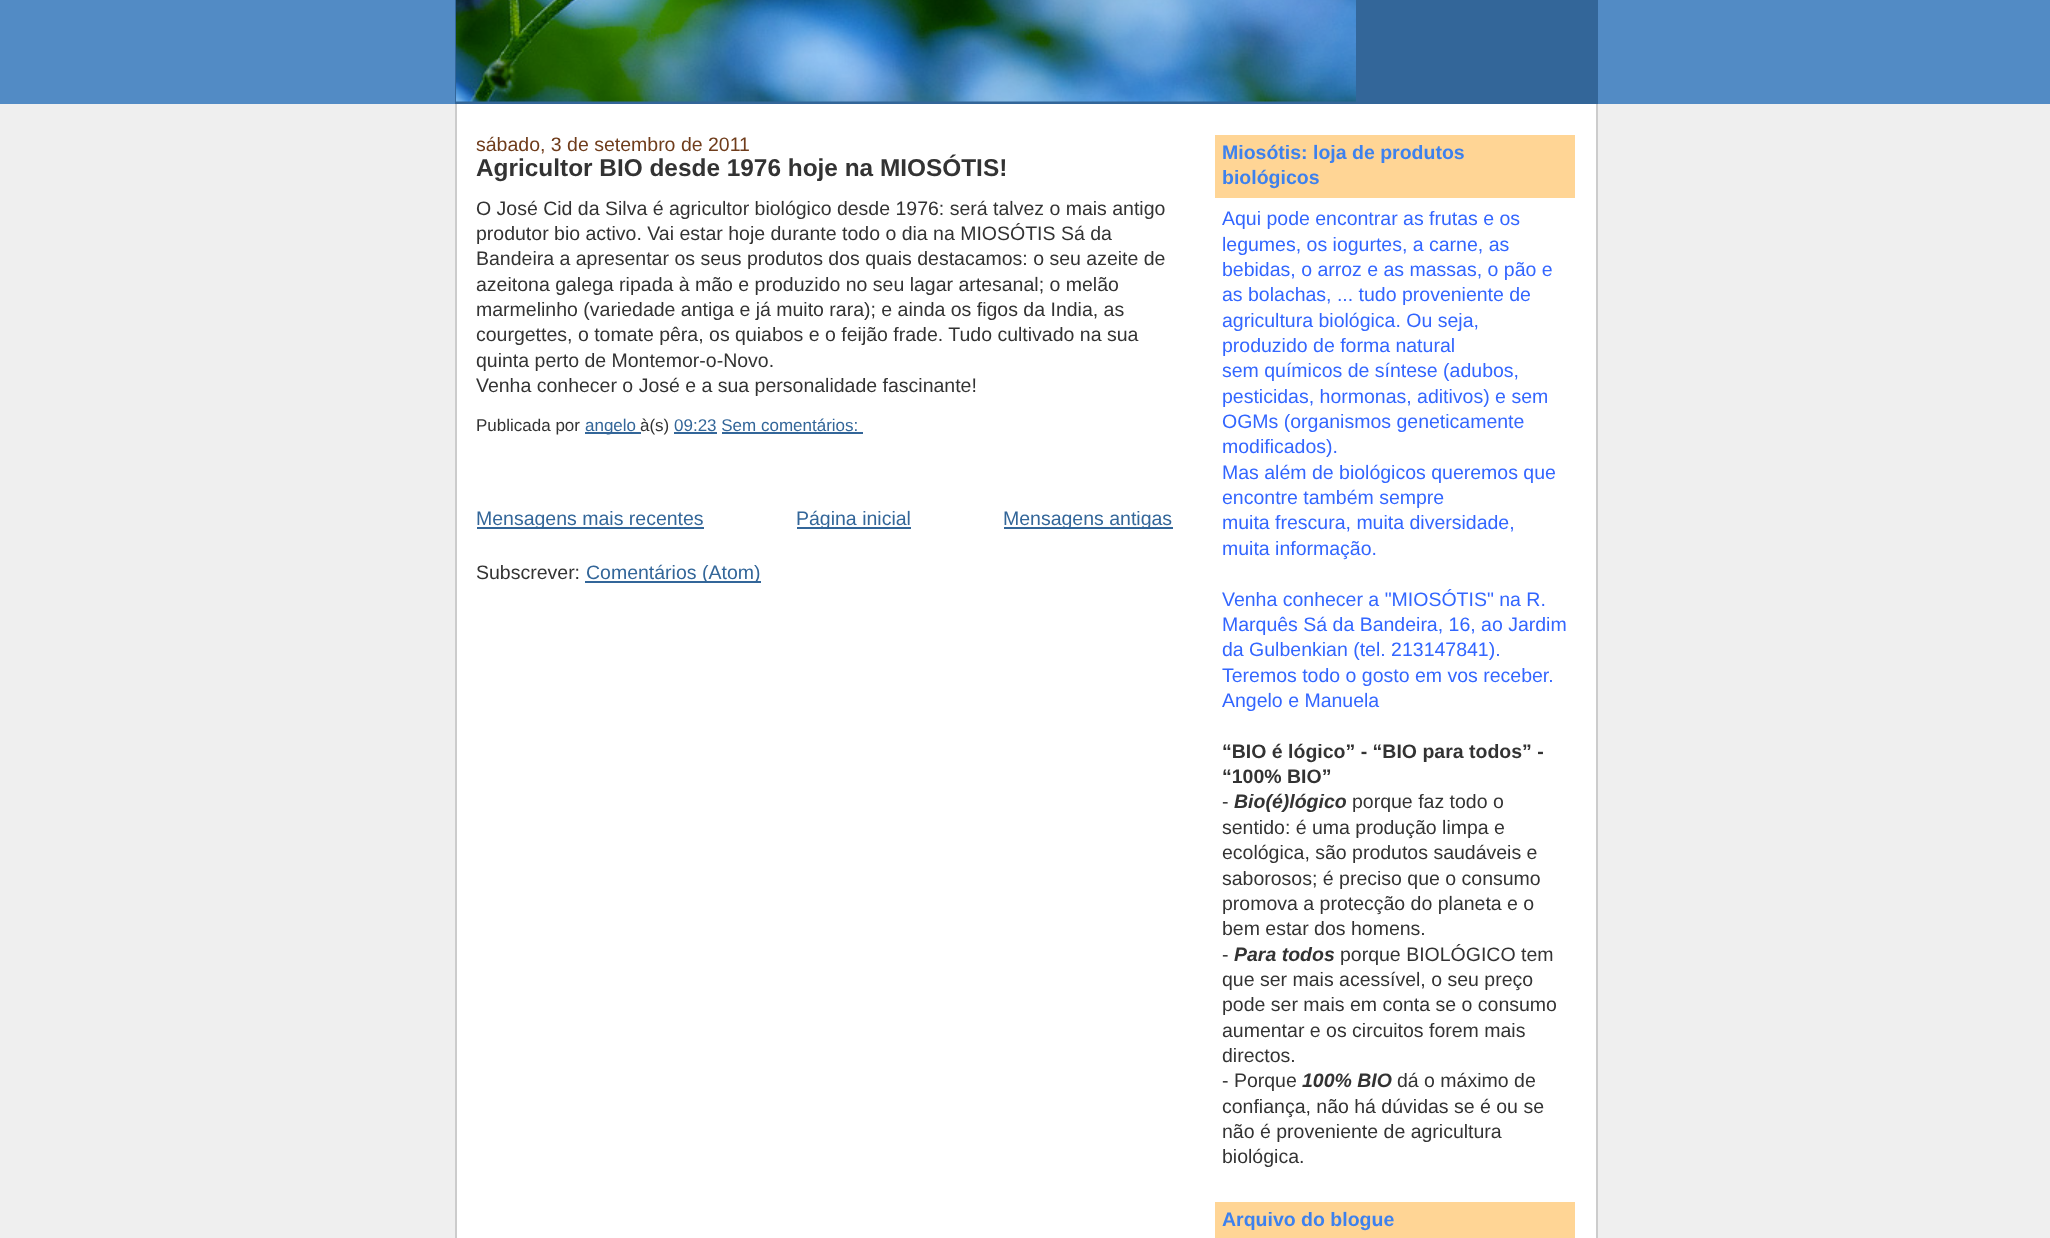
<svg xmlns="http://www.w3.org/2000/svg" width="2050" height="1238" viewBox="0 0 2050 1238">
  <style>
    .t1 { font: 19.5px Liberation Sans; fill: #6f3c1b; }
    .t2 { font: bold 24.4px Liberation Sans; fill: #333; }
    .t3 { font: 19.5px Liberation Sans; fill: #333; }
    .t4 { font: 17px Liberation Sans; fill: #333; }
    .t5 { font: 17px Liberation Sans; fill: #369; }
    .t6 { font: 19.5px Liberation Sans; fill: #369; }
    .t7 { font: bold 19.5px Liberation Sans; fill: #3d81ee; }
    .t8 { font: 19.5px Liberation Sans; fill: #36f; }
    .t9 { font: bold 19.5px Liberation Sans; fill: #333; }
    .t10 { font: italic bold 19.5px Liberation Sans; fill: #333; }
  </style>
  <rect width="100%" height="100%" fill="#efefef"/>
  <rect x="0" y="0" width="2050" height="104" fill="#528bc5"/>
  <rect x="455" y="0" width="1143" height="104" fill="#369"/>
  <image x="456" y="0" width="900" height="102" href="images/1.png"/>
  <rect x="457" y="104" width="1139" height="1134" fill="#fff"/>
  <rect x="1596" y="104" width="2" height="1134" fill="#ccc"/>
  <rect x="455" y="104" width="2" height="1134" fill="#ccc"/>
  <text x="476" y="151" class="t1">sábado, 3 de setembro de 2011</text>
  <text x="476" y="176" class="t2">Agricultor BIO desde 1976 hoje na MIOSÓTIS!</text>
  <text x="476" y="215" class="t3">O José Cid da Silva é agricultor biológico desde 1976: será talvez o mais antigo</text>
  <text x="476" y="240" class="t3">produtor bio activo. Vai estar hoje durante todo o dia na MIOSÓTIS Sá da</text>
  <text x="476" y="265" class="t3">Bandeira a apresentar os seus produtos dos quais destacamos: o seu azeite de</text>
  <text x="476" y="291" class="t3">azeitona galega ripada à mão e produzido no seu lagar artesanal; o melão</text>
  <text x="476" y="316" class="t3">marmelinho (variedade antiga e já muito rara); e ainda os figos da India, as</text>
  <text x="476" y="341" class="t3">courgettes, o tomate pêra, os quiabos e o feijão frade. Tudo cultivado na sua</text>
  <text x="476" y="367" class="t3">quinta perto de Montemor-o-Novo.</text>
  <text x="476" y="392" class="t3">Venha conhecer o José e a sua personalidade fascinante!</text>
  <text x="476" y="431" class="t4">Publicada por</text>
  <rect x="585" y="432" width="56" height="2" fill="#369"/>
  <text x="585" y="431" class="t5">angelo</text>
  <text x="640" y="431" class="t4">à(s)</text>
  <text x="674" y="431" class="t5">09:23 Sem comentários:</text>
  <rect x="674" y="432" width="43" height="2" fill="#369"/>
  <rect x="722" y="432" width="141" height="2" fill="#369"/>
  <rect x="477" y="527" width="227" height="2" fill="#369"/>
  <text x="476" y="525" class="t6">Mensagens mais recentes</text>
  <rect x="797" y="527" width="114" height="2" fill="#369"/>
  <text x="796" y="525" class="t6">Página inicial</text>
  <rect x="1004" y="527" width="169" height="2" fill="#369"/>
  <text x="1003" y="525" class="t6">Mensagens antigas</text>
  <text x="476" y="579" class="t3">Subscrever:</text>
  <rect x="585" y="581" width="176" height="2" fill="#369"/>
  <text x="586" y="579" class="t6">Comentários (Atom)</text>
  <rect x="1215" y="135" width="360" height="63" fill="#ffd595"/>
  <text x="1222" y="159" class="t7">Miosótis: loja de produtos</text>
  <text x="1222" y="184" class="t7">biológicos</text>
  <text x="1222" y="225" class="t8">Aqui pode encontrar as frutas e os</text>
  <text x="1222" y="251" class="t8">legumes, os iogurtes, a carne, as</text>
  <text x="1222" y="276" class="t8">bebidas, o arroz e as massas, o pão e</text>
  <text x="1222" y="301" class="t8">as bolachas, ... tudo proveniente de</text>
  <text x="1222" y="327" class="t8">agricultura biológica. Ou seja,</text>
  <text x="1222" y="352" class="t8">produzido de forma natural</text>
  <text x="1222" y="377" class="t8">sem químicos de síntese (adubos,</text>
  <text x="1222" y="403" class="t8">pesticidas, hormonas, aditivos) e sem</text>
  <text x="1222" y="428" class="t8">OGMs (organismos geneticamente</text>
  <text x="1222" y="453" class="t8">modificados).</text>
  <text x="1222" y="479" class="t8">Mas além de biológicos queremos que</text>
  <text x="1222" y="504" class="t8">encontre também sempre</text>
  <text x="1222" y="529" class="t8">muita frescura, muita diversidade,</text>
  <text x="1222" y="555" class="t8">muita informação.</text>
  <text x="1222" y="606" class="t8">Venha conhecer a "MIOSÓTIS" na R.</text>
  <text x="1222" y="631" class="t8">Marquês Sá da Bandeira, 16, ao Jardim</text>
  <text x="1222" y="656" class="t8">da Gulbenkian (tel. 213147841).</text>
  <text x="1222" y="682" class="t8">Teremos todo o gosto em vos receber.</text>
  <text x="1222" y="707" class="t8">Angelo e Manuela</text>
  <text x="1222" y="758" class="t9">“BIO é lógico” - “BIO para todos” -</text>
  <text x="1222" y="783" class="t9">“100% BIO”</text>
  <text x="1222" y="808" class="t3">-</text>
  <text x="1234" y="808" class="t10">Bio(é)lógico</text>
  <text x="1352" y="808" class="t3">porque faz todo o</text>
  <text x="1222" y="834" class="t3">sentido: é uma produção limpa e</text>
  <text x="1222" y="859" class="t3">ecológica, são produtos saudáveis e</text>
  <text x="1222" y="885" class="t3">saborosos; é preciso que o consumo</text>
  <text x="1222" y="910" class="t3">promova a protecção do planeta e o</text>
  <text x="1222" y="935" class="t3">bem estar dos homens.</text>
  <text x="1222" y="961" class="t3">-</text>
  <text x="1234" y="961" class="t10">Para todos</text>
  <text x="1340" y="961" class="t3">porque BIOLÓGICO tem</text>
  <text x="1222" y="986" class="t3">que ser mais acessível, o seu preço</text>
  <text x="1222" y="1011" class="t3">pode ser mais em conta se o consumo</text>
  <text x="1222" y="1037" class="t3">aumentar e os circuitos forem mais</text>
  <text x="1222" y="1062" class="t3">directos.</text>
  <text x="1222" y="1087" class="t3">- Porque</text>
  <text x="1302" y="1087" class="t10">100% BIO</text>
  <text x="1397" y="1087" class="t3">dá o máximo de</text>
  <text x="1222" y="1113" class="t3">confiança, não há dúvidas se é ou se</text>
  <text x="1222" y="1138" class="t3">não é proveniente de agricultura</text>
  <text x="1222" y="1163" class="t3">biológica.</text>
  <rect x="1215" y="1202" width="360" height="36" fill="#ffd595"/>
  <text x="1222" y="1226" class="t7">Arquivo do blogue</text>
</svg>
